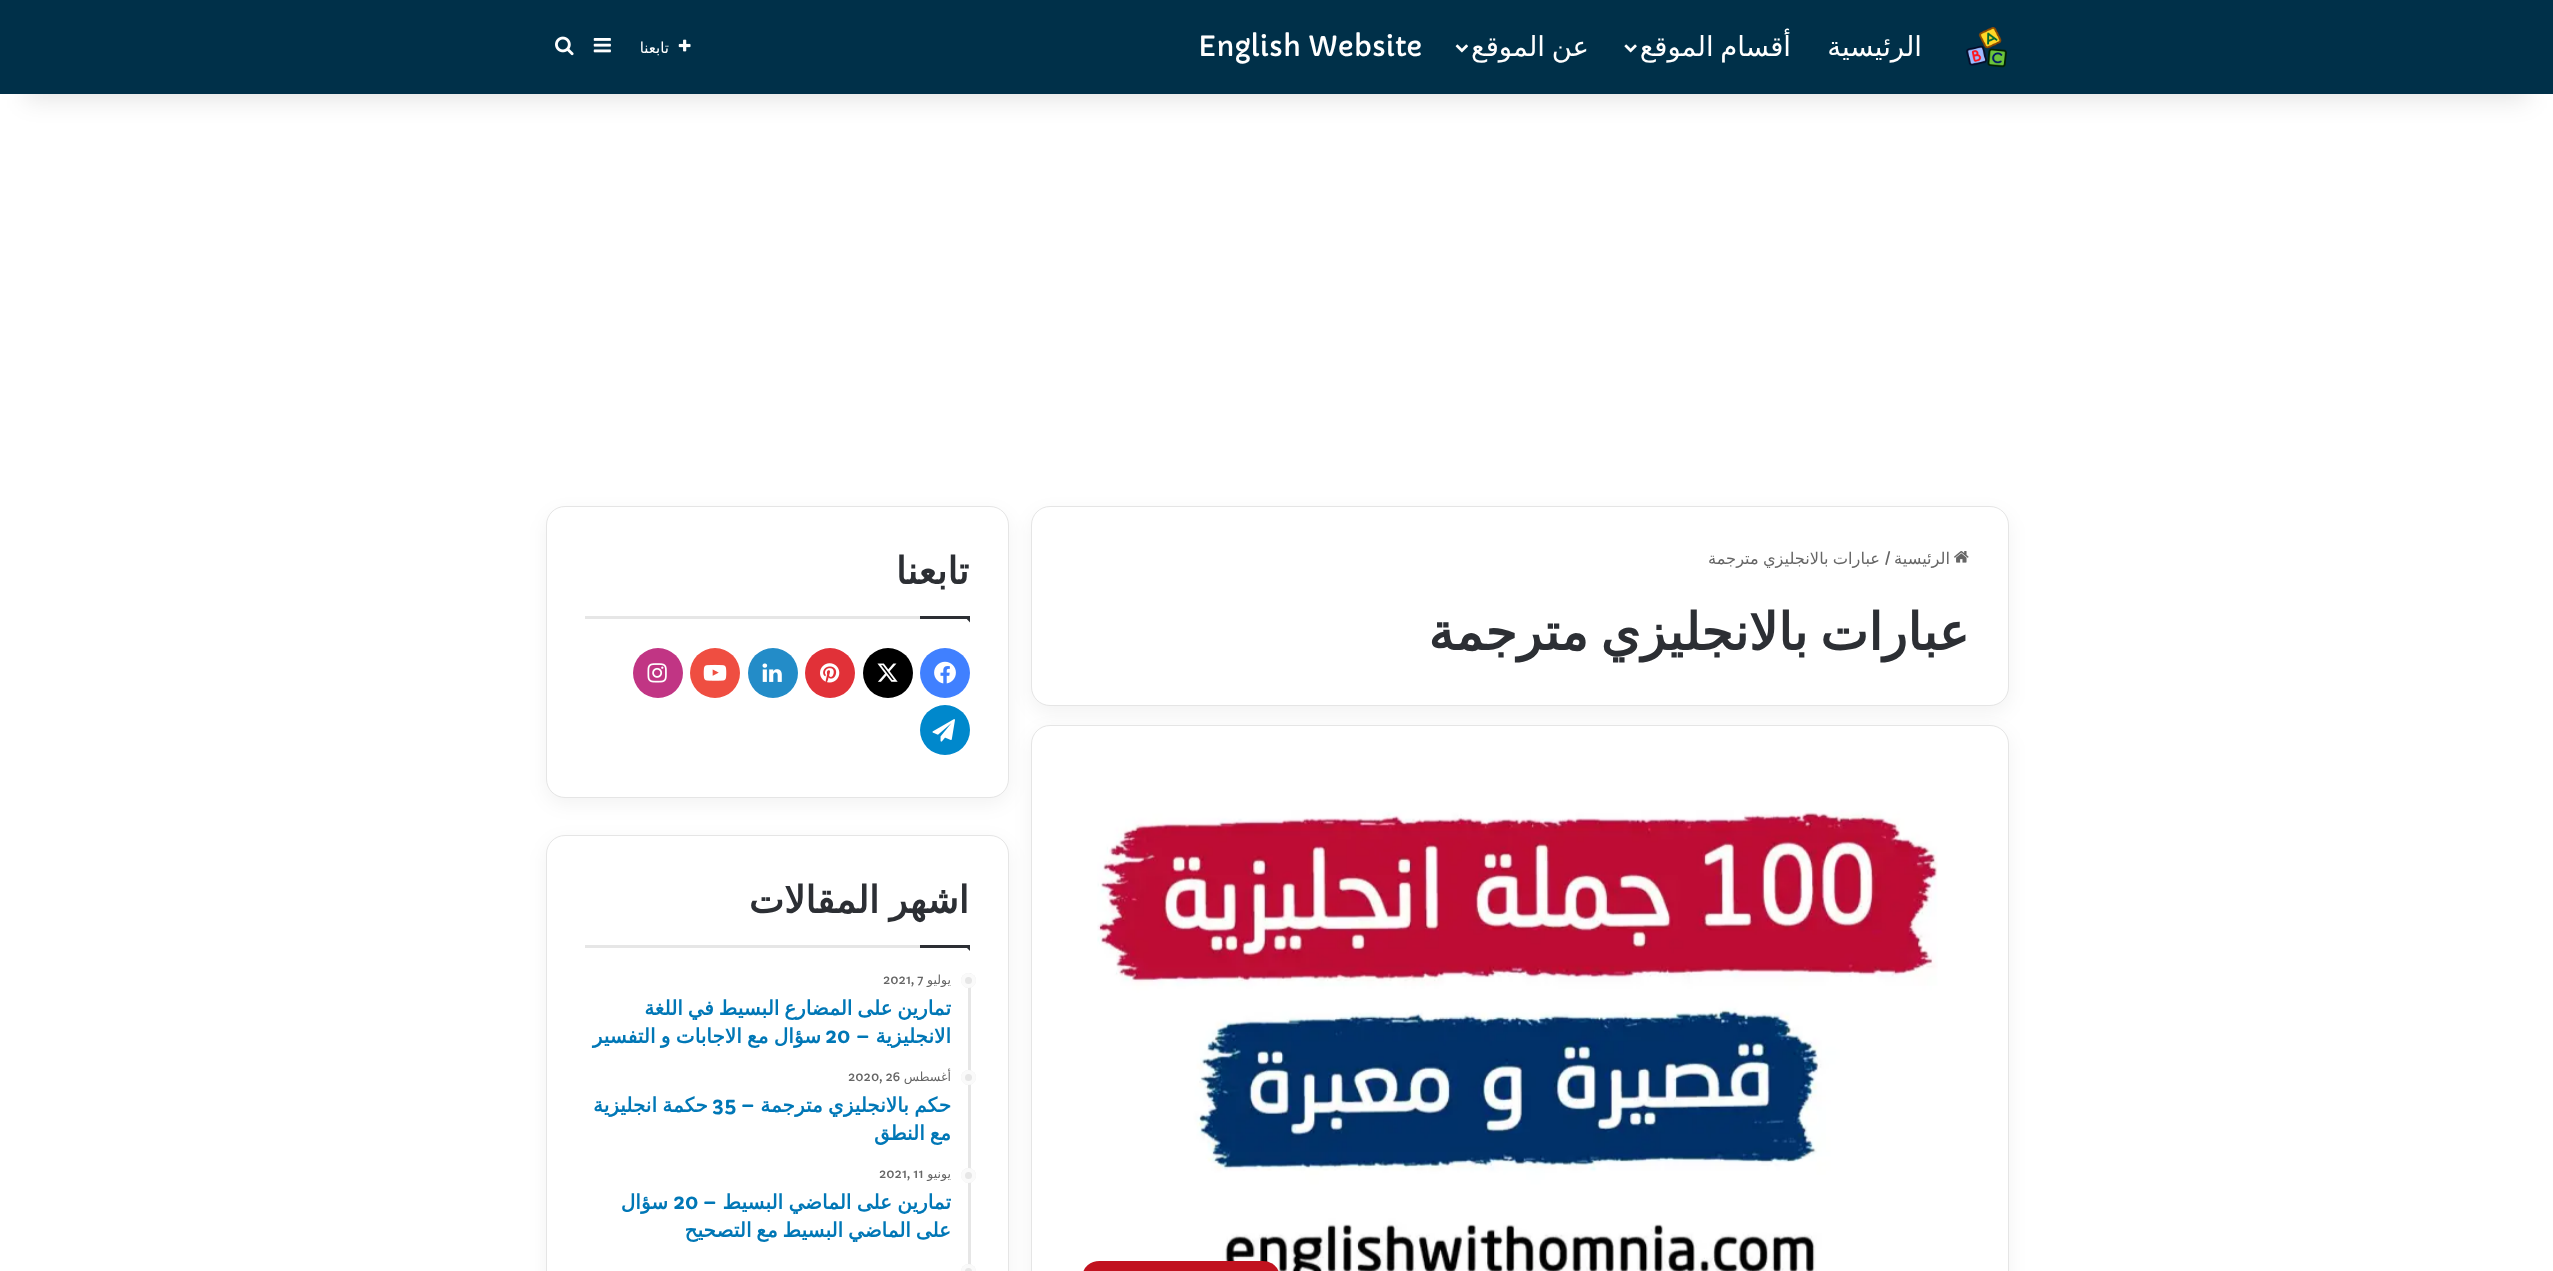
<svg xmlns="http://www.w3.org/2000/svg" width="2553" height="1271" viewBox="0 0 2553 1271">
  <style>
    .t1 { font: 27.5px DejaVu Sans; direction: rtl; fill: #fff; }
    .t2 { font: 27.5px Capriola; fill: #fff; }
    .t3 { font: 15px DejaVu Sans; direction: rtl; fill: #fff; }
    .t4 { font: 16.25px DejaVu Sans; direction: rtl; fill: #666; }
    .t5 { font: 16.25px Capriola; fill: #666; }
    .t6 { font: bold 51.25px DejaVu Sans; direction: rtl; fill: #2c2f34; }
    .t7 { font: bold 37.5px DejaVu Sans; direction: rtl; fill: #2c2f34; }
    .t8 { font: 12.5px DejaVu Sans; direction: rtl; fill: #666; }
    .t9 { font: 12.5px Capriola; fill: #666; }
    .t10 { font: bold 20px DejaVu Sans; direction: rtl; fill: #0077b6; }
    .t11 { font: bold 20px Capriola; direction: rtl; fill: #0077b6; }
    .t12 { font: bold 20px Capriola; fill: #0077b6; }
  </style>
  <rect width="100%" height="100%" fill="#fff"/>
  <rect x="25" y="56" width="2504" height="44" fill="#0000001a" filter="blur(12.5px)"/>
  <rect x="0" y="0" width="2553" height="94" fill="#003049"/>
  <image x="1966" y="27" width="41" height="41" href="images/1.png"/>
  <text x="1922" y="56" class="t1">الرئيسية</text>
  <text x="1791" y="56" word-spacing="-2" class="t1">أقسام الموقع</text>
  <image x="1624" y="44" width="13" height="9" href="images/2.png"/>
  <text x="1589" y="56" word-spacing="-2" class="t1">عن الموقع</text>
  <image x="1455" y="44" width="13" height="9" href="images/3.png"/>
  <text x="1198" y="56" class="t2">English Website</text>
  <image x="678" y="39" width="13" height="13" href="images/4.png"/>
  <text x="669" y="53" class="t3">تابعنا</text>
  <image x="593" y="38" width="18" height="15" href="images/5.png"/>
  <image x="555" y="36" width="19" height="20" href="images/6.png"/>
  <rect x="1031" y="513" width="978" height="200" rx="19" fill="#0000000d" filter="blur(9.5px)"/>
  <rect x="1031.5" y="506.5" width="977" height="199" rx="18.5" fill="#fff" stroke="#e5e5e5"/>
  <image x="1954" y="551" width="15" height="12" href="images/7.png"/>
  <text x="1950" y="564" class="t4">الرئيسية</text>
  <text x="1884" y="564" class="t5">/</text>
  <text x="1880" y="564" word-spacing="-1" class="t4">عبارات بالانجليزي مترجمة</text>
  <text x="1969" y="650" word-spacing="-4" class="t6">عبارات بالانجليزي مترجمة</text>
  <rect x="1031" y="731" width="978" height="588" rx="19" fill="#0000000d" filter="blur(9.5px)"/>
  <rect x="1031.5" y="725.5" width="977" height="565" rx="18.5" fill="#fff" stroke="#e5e5e5"/>
  <image x="1097" y="810" width="841" height="461" href="images/8.png"/>
  <rect x="1083" y="1261" width="196" height="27" rx="16.5" fill="#c1121f"/>
  <rect x="546" y="513" width="463" height="291" rx="19" fill="#0000000d" filter="blur(9.5px)"/>
  <rect x="546.5" y="506.5" width="462" height="291" rx="18.5" fill="#fff" stroke="#e5e5e5"/>
  <rect x="585" y="616" width="335" height="3" fill="#e6e6e6"/>
  <text x="969" y="584" class="t7">تابعنا</text>
  <path d="M964 616H970V622.5Z" fill="#2c2f34"/>
  <rect x="920" y="616" width="50" height="3" fill="#2c2f34"/>
  <circle cx="945" cy="673" r="25" fill="#4080ff"/>
  <image x="934" y="661" width="22" height="23" href="images/9.png"/>
  <circle cx="888" cy="673" r="25" fill="#000"/>
  <image x="877" y="663" width="21" height="19" href="images/10.png"/>
  <circle cx="830" cy="673" r="25" fill="#e13138"/>
  <image x="820" y="663" width="20" height="20" href="images/11.png"/>
  <circle cx="773" cy="673" r="25" fill="#238cc8"/>
  <image x="762" y="663" width="20" height="19" href="images/12.png"/>
  <circle cx="715" cy="673" r="25" fill="#ef4e41"/>
  <image x="703" y="664" width="24" height="17" href="images/13.png"/>
  <circle cx="658" cy="673" r="25" fill="#c13584"/>
  <image x="647" y="663" width="20" height="20" href="images/14.png"/>
  <circle cx="945" cy="730" r="25" fill="#08c"/>
  <image x="932" y="719" width="23" height="23" href="images/15.png"/>
  <rect x="546" y="841" width="463" height="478" rx="19" fill="#0000000d" filter="blur(9.5px)"/>
  <rect x="546.5" y="835.5" width="462" height="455" rx="18.5" fill="#fff" stroke="#e5e5e5"/>
  <rect x="585" y="945" width="335" height="3" fill="#e6e6e6"/>
  <text x="969" y="913" word-spacing="-2" class="t7">اشهر المقالات</text>
  <path d="M964 945H970V951Z" fill="#2c2f34"/>
  <rect x="920" y="945" width="50" height="3" fill="#2c2f34"/>
  <rect x="968" y="973" width="3" height="298" fill="#e6e6e6"/>
  <circle cx="968.5" cy="980.5" r="7.5" fill="#e6e6e6"/>
  <circle cx="968.5" cy="980.5" r="5.5" fill="none" stroke="#ffffffcc" stroke-width="4"/>
  <text x="951" y="984" class="t8">يوليو</text>
  <text x="883" y="984" class="t9">2021, 7</text>
  <text x="951" y="1015" word-spacing="-1.5" class="t10">تمارين على المضارع البسيط في اللغة</text>
  <text x="951" y="1043" class="t10">الانجليزية</text>
  <text x="870" y="1043" class="t11">–</text>
  <text x="825" y="1043" class="t12">20</text>
  <text x="821" y="1043" word-spacing="-1" class="t10">سؤال مع الاجابات و التفسير</text>
  <circle cx="968.5" cy="1077.5" r="7.5" fill="#e6e6e6"/>
  <circle cx="968.5" cy="1077.5" r="5.5" fill="none" stroke="#ffffffcc" stroke-width="4"/>
  <text x="951" y="1081" class="t8">أغسطس</text>
  <text x="848" y="1081" class="t9">2020, 26</text>
  <text x="951" y="1112" word-spacing="-1" class="t10">حكم بالانجليزي مترجمة</text>
  <text x="755" y="1112" class="t11">–</text>
  <text x="712" y="1112" class="t12">35</text>
  <text x="708" y="1112" word-spacing="-1" class="t10">حكمة انجليزية</text>
  <text x="951" y="1140" word-spacing="-1.5" class="t10">مع النطق</text>
  <circle cx="968.5" cy="1175.5" r="7.5" fill="#e6e6e6"/>
  <circle cx="968.5" cy="1175.5" r="5.5" fill="none" stroke="#ffffffcc" stroke-width="4"/>
  <text x="951" y="1178" class="t8">يونيو</text>
  <text x="879" y="1178" class="t9">2021, 11</text>
  <text x="951" y="1209" word-spacing="-1" class="t10">تمارين على الماضي البسيط</text>
  <text x="717" y="1209" class="t11">–</text>
  <text x="673" y="1209" class="t12">20</text>
  <text x="668" y="1209" class="t10">سؤال</text>
  <text x="951" y="1237" word-spacing="-1.5" class="t10">على الماضي البسيط مع التصحيح</text>
  <circle cx="968.5" cy="1271.5" r="7.5" fill="#e6e6e6"/>
  <circle cx="968.5" cy="1271.5" r="5.5" fill="none" stroke="#ffffffcc" stroke-width="4"/>
</svg>
